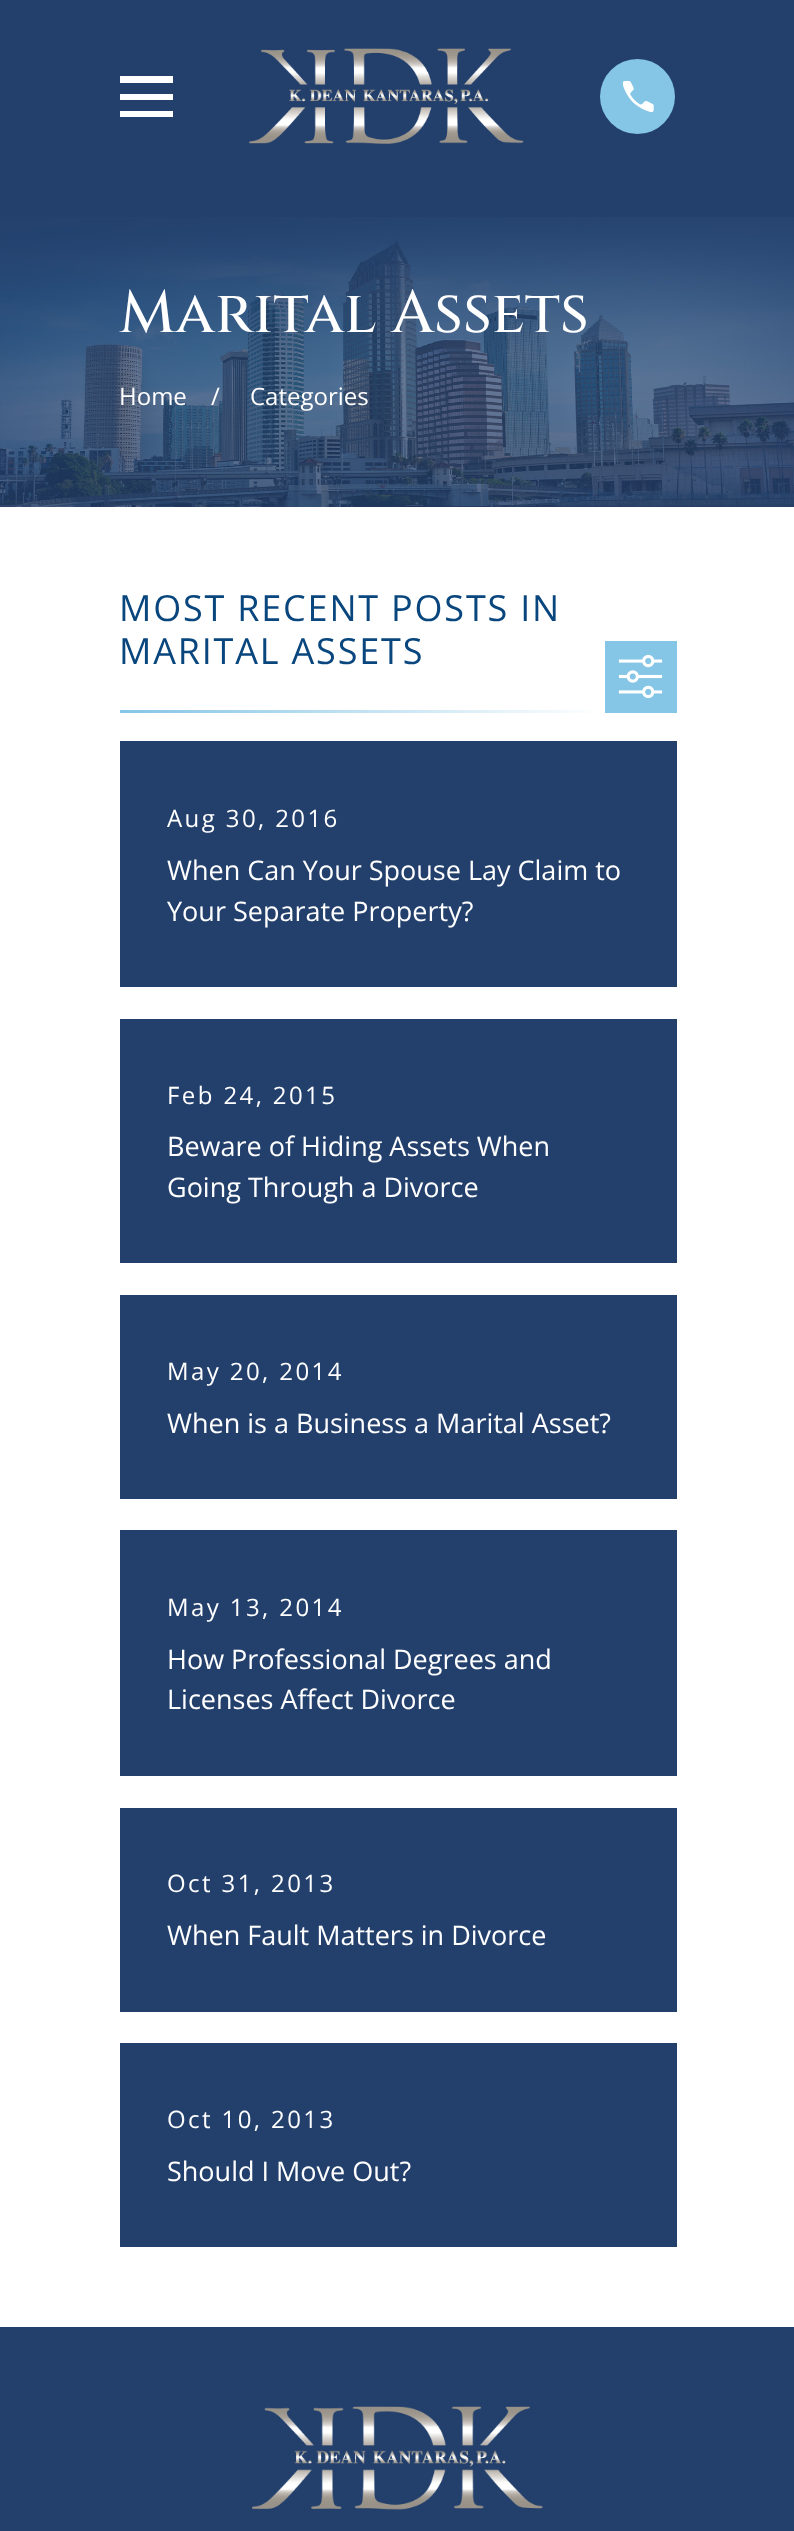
<svg xmlns="http://www.w3.org/2000/svg" width="794" height="2531" viewBox="0 0 794 2531">
  <style>
    .t1 { font: 500 60px Cinzel; fill: #fff; }
    .t2 { font: 24px Open Sans; fill: #fff; }
    .t3 { font: 36px Open Sans; letter-spacing: 1.8px; fill: #08467d; }
    .t4 { font: 24px Open Sans; letter-spacing: 2.4px; fill: #fff; }
    .t5 { font: 27px Open Sans; fill: #fff; }
  </style>
  <defs>
    <linearGradient id="g1" gradientUnits="userSpaceOnUse" x1="120" y1="711" x2="605" y2="711"><stop offset="0" stop-color="#85c5e6"/><stop offset="1" stop-color="#fff"/></linearGradient>
  </defs>
  <rect width="100%" height="100%" fill="#fff"/>
  <rect x="0" y="0" width="794" height="217" fill="#23406d"/>
  <path d="M120 76V83H173V76ZM120 94V100H173V94ZM120 111V117H173V111Z" fill="#fff"/>
  <image x="249" y="48" width="275" height="96" href="images/1.png"/>
  <circle cx="637.5" cy="96.5" r="37.5" fill="#85c5e6"/>
  <image x="623" y="81" width="31" height="32" href="images/2.png"/>
  <image x="0" y="217" width="794" height="290" href="images/3.png"/>
  <text x="119" y="332" class="t1">Marital Assets</text>
  <text x="119" y="405" class="t2">Home</text>
  <text x="211" y="405" class="t2">/</text>
  <text x="250" y="405" class="t2">Categories</text>
  <text x="119" y="621" class="t3">MOST RECENT POSTS IN</text>
  <text x="119" y="664" class="t3">MARITAL ASSETS</text>
  <rect x="120" y="710" width="475" height="3" fill="url(#g1)"/>
  <rect x="605" y="641" width="72" height="72" fill="#85c5e6"/>
  <image x="618" y="654" width="45" height="45" href="images/4.png"/>
  <rect x="120" y="741" width="557" height="246" fill="#23406d"/>
  <text x="167" y="827" class="t4">Aug 30, 2016</text>
  <text x="167" y="880" class="t5">When Can Your Spouse Lay Claim to</text>
  <text x="167" y="921" class="t5">Your Separate Property?</text>
  <rect x="120" y="1019" width="557" height="244" fill="#23406d"/>
  <text x="167" y="1104" class="t4">Feb 24, 2015</text>
  <text x="167" y="1156" class="t5">Beware of Hiding Assets When</text>
  <text x="167" y="1197" class="t5">Going Through a Divorce</text>
  <rect x="120" y="1295" width="557" height="204" fill="#23406d"/>
  <text x="167" y="1380" class="t4">May 20, 2014</text>
  <text x="167" y="1433" class="t5">When is a Business a Marital Asset?</text>
  <rect x="120" y="1530" width="557" height="246" fill="#23406d"/>
  <text x="167" y="1616" class="t4">May 13, 2014</text>
  <text x="167" y="1669" class="t5">How Professional Degrees and</text>
  <text x="167" y="1709" class="t5">Licenses Affect Divorce</text>
  <rect x="120" y="1808" width="557" height="204" fill="#23406d"/>
  <text x="167" y="1892" class="t4">Oct 31, 2013</text>
  <text x="167" y="1945" class="t5">When Fault Matters in Divorce</text>
  <rect x="120" y="2043" width="557" height="204" fill="#23406d"/>
  <text x="167" y="2128" class="t4">Oct 10, 2013</text>
  <text x="167" y="2181" class="t5">Should I Move Out?</text>
  <rect x="0" y="2327" width="794" height="204" fill="#23406d"/>
  <image x="252" y="2406" width="291" height="104" href="images/5.png"/>
</svg>
